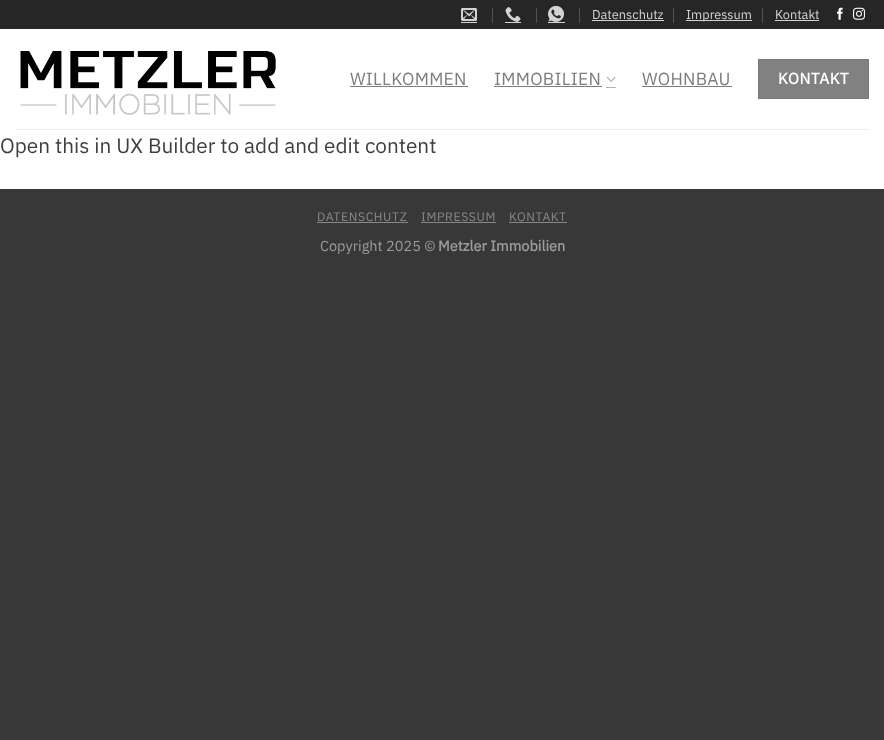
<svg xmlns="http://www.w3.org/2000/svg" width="884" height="740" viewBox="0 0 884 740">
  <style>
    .t1 { font: 12.75px IBM Plex Sans; fill: #d4d4d4; }
    .t2 { font: 17.5px IBM Plex Sans; letter-spacing: 0.25px; fill: #7d7d7d; }
    .t3 { font: bold 15.5px IBM Plex Sans; letter-spacing: 0.5px; fill: #fff; }
    .t4 { font: 20.8px IBM Plex Sans; fill: #3f3f3f; }
    .t5 { font: 12.25px IBM Plex Sans; letter-spacing: 0.6px; fill: #888; }
    .t6 { font: 14.5px IBM Plex Sans; fill: #9c9c9c; }
    .t7 { font: bold 14.5px IBM Plex Sans; fill: #9c9c9c; }
  </style>
  <rect width="100%" height="100%" fill="#383838"/>
  <rect x="0" y="29" width="884" height="160" fill="#fff"/>
  <rect x="0" y="0" width="884" height="29" fill="#262626"/>
  <image x="461" y="8" width="16" height="13" href="images/1.png"/>
  <rect x="461" y="22" width="16" height="1" fill="#d4d4d4"/>
  <rect x="492" y="8" width="1" height="15" fill="#515151"/>
  <image x="505" y="7" width="16" height="15" href="images/2.png"/>
  <rect x="505" y="22" width="16" height="1" fill="#d4d4d4"/>
  <rect x="536" y="8" width="1" height="15" fill="#515151"/>
  <image x="548" y="5" width="16" height="17" href="images/3.png"/>
  <rect x="548" y="22" width="17" height="1" fill="#d4d4d4"/>
  <rect x="579" y="8" width="1" height="15" fill="#515151"/>
  <text x="592" y="19" class="t1">Datenschutz</text>
  <rect x="592" y="20" width="72" height="1" fill="#d4d4d4"/>
  <rect x="673" y="8" width="1" height="15" fill="#515151"/>
  <rect x="686" y="20" width="66" height="1" fill="#d4d4d4"/>
  <text x="686" y="19" class="t1">Impressum</text>
  <rect x="762" y="8" width="1" height="15" fill="#515151"/>
  <text x="775" y="19" class="t1">Kontakt</text>
  <rect x="775" y="20" width="44" height="1" fill="#d4d4d4"/>
  <image x="837" y="7" width="6" height="13" href="images/4.png"/>
  <image x="853" y="7" width="12" height="13" href="images/5.png"/>
  <image x="20" y="51" width="256" height="64" href="images/6.png"/>
  <text x="350" y="85" class="t2">WILLKOMMEN</text>
  <rect x="350" y="86" width="118" height="1" fill="#7d7d7d"/>
  <text x="494" y="85" class="t2">IMMOBILIEN</text>
  <rect x="494" y="86" width="108" height="1" fill="#7d7d7d"/>
  <image x="606" y="76" width="10" height="6" href="images/7.png"/>
  <rect x="606" y="87" width="10" height="1" fill="#b1b1b1"/>
  <text x="642" y="85" class="t2">WOHNBAU</text>
  <rect x="642" y="86" width="90" height="1" fill="#7d7d7d"/>
  <rect x="758.5" y="59.5" width="110" height="39" fill="#818181" stroke="#7b7b7b"/>
  <text x="778" y="84" class="t3">KONTAKT</text>
  <rect x="15" y="129" width="854" height="1" fill="#ececec"/>
  <text x="0" y="153" class="t4">Open this in UX Builder to add and edit content</text>
  <text x="317" y="221" class="t5">DATENSCHUTZ</text>
  <rect x="317" y="222" width="91" height="1" fill="#888"/>
  <text x="421" y="221" class="t5">IMPRESSUM</text>
  <rect x="421" y="222" width="75" height="1" fill="#888"/>
  <text x="509" y="221" class="t5">KONTAKT</text>
  <rect x="509" y="222" width="58" height="1" fill="#888"/>
  <text x="320" y="251" class="t6">Copyright 2025 ©</text>
  <text x="438" y="251" class="t7">Metzler Immobilien</text>
</svg>
